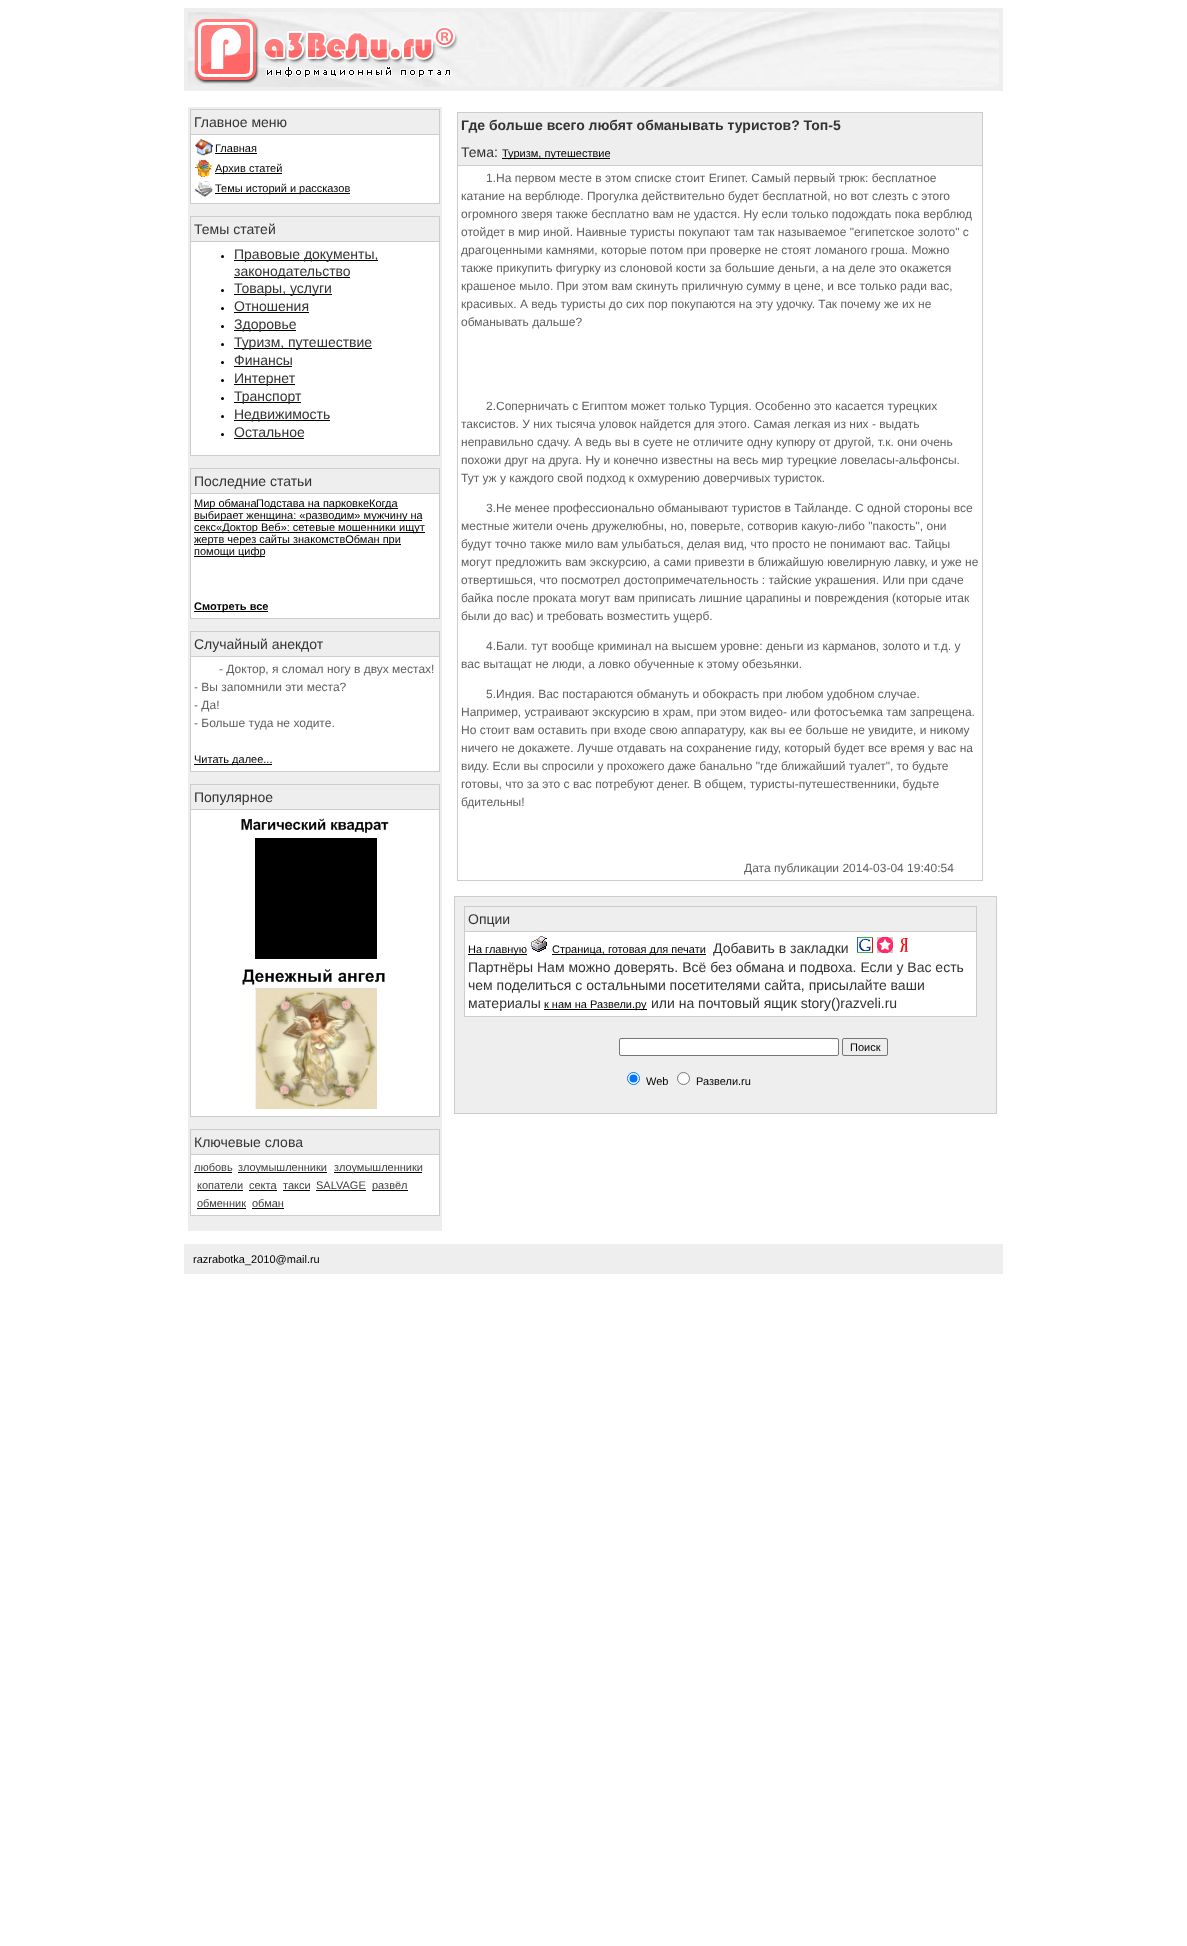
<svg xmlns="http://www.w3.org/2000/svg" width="1187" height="1946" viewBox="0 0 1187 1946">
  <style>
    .t1 { font: 14px Liberation Sans; fill: #333; }
    .t2 { font: 11px Liberation Sans; fill: #000; }
    .t3 { font: bold 11px Liberation Sans; fill: #000; }
    .t4 { font: 12px Liberation Sans; fill: #606060; }
    .t5 { font: 11px Liberation Sans; fill: #3f3f3f; }
    .t6 { font: bold 14px Liberation Sans; fill: #333; }
  </style>
  <rect width="100%" height="100%" fill="#fff"/>
  <rect x="184" y="8" width="819" height="83" fill="#eee"/>
  <image x="188" y="12" width="811" height="75" href="images/1.png"/>
  <image x="191" y="15" width="267" height="69" href="images/2.png"/>
  <rect x="188" y="107" width="254" height="1124" fill="#eee"/>
  <rect x="190" y="109" width="250" height="95" fill="#ccc"/>
  <rect x="191" y="110" width="248" height="24" fill="#eee"/>
  <text x="194" y="127" class="t1">Главное меню</text>
  <rect x="191" y="135" width="248" height="68" fill="#fff"/>
  <image x="195" y="139" width="18" height="17" href="images/3.png"/>
  <text x="215" y="152" class="t2">Главная</text>
  <rect x="215" y="153" width="42" height="1" fill="#000"/>
  <image x="195" y="159" width="17" height="18" href="images/4.png"/>
  <rect x="215" y="173" width="67" height="1" fill="#000"/>
  <text x="215" y="172" class="t2">Архив статей</text>
  <image x="195" y="181" width="18" height="16" href="images/5.png"/>
  <rect x="215" y="193" width="135" height="1" fill="#000"/>
  <text x="215" y="192" class="t2">Темы историй и рассказов</text>
  <rect x="190" y="216" width="250" height="240" fill="#ccc"/>
  <rect x="191" y="217" width="248" height="24" fill="#eee"/>
  <text x="194" y="234" class="t1">Темы статей</text>
  <rect x="191" y="242" width="248" height="213" fill="#fff"/>
  <circle cx="222.5" cy="256.5" r="1.5" fill="#000"/>
  <rect x="234" y="260" width="144" height="1" fill="#000"/>
  <text x="234" y="259" class="t1">Правовые документы,</text>
  <rect x="234" y="277" width="116" height="1" fill="#000"/>
  <text x="234" y="276" class="t1">законодательство</text>
  <circle cx="222.5" cy="290.5" r="1.5" fill="#000"/>
  <rect x="234" y="294" width="98" height="1" fill="#000"/>
  <text x="234" y="293" class="t1">Товары, услуги</text>
  <circle cx="222.5" cy="308.5" r="1.5" fill="#000"/>
  <text x="234" y="311" class="t1">Отношения</text>
  <rect x="234" y="312" width="75" height="1" fill="#000"/>
  <circle cx="222.5" cy="326.5" r="1.5" fill="#000"/>
  <rect x="234" y="330" width="62" height="1" fill="#000"/>
  <text x="234" y="329" class="t1">Здоровье</text>
  <circle cx="222.5" cy="344.5" r="1.5" fill="#000"/>
  <rect x="234" y="348" width="138" height="1" fill="#000"/>
  <text x="234" y="347" class="t1">Туризм, путешествие</text>
  <circle cx="222.5" cy="362.5" r="1.5" fill="#000"/>
  <text x="234" y="365" class="t1">Финансы</text>
  <rect x="234" y="366" width="58" height="1" fill="#000"/>
  <circle cx="222.5" cy="380.5" r="1.5" fill="#000"/>
  <rect x="234" y="384" width="61" height="1" fill="#000"/>
  <text x="234" y="383" class="t1">Интернет</text>
  <circle cx="222.5" cy="398.5" r="1.5" fill="#000"/>
  <rect x="234" y="402" width="67" height="1" fill="#000"/>
  <text x="234" y="401" class="t1">Транспорт</text>
  <circle cx="222.5" cy="416.5" r="1.5" fill="#000"/>
  <rect x="234" y="420" width="96" height="1" fill="#000"/>
  <text x="234" y="419" class="t1">Недвижимость</text>
  <circle cx="222.5" cy="434.5" r="1.5" fill="#000"/>
  <text x="234" y="437" class="t1">Остальное</text>
  <rect x="234" y="438" width="70" height="1" fill="#000"/>
  <rect x="190" y="468" width="250" height="151" fill="#ccc"/>
  <rect x="191" y="469" width="248" height="24" fill="#eee"/>
  <text x="194" y="486" class="t1">Последние статьи</text>
  <rect x="191" y="494" width="248" height="124" fill="#fff"/>
  <rect x="194" y="508" width="62" height="1" fill="#000"/>
  <text x="194" y="507" class="t2">Мир обмана</text>
  <rect x="256" y="508" width="142" height="1" fill="#000"/>
  <text x="256" y="507" class="t2">Подстава на парковкеКогда</text>
  <rect x="194" y="520" width="228" height="1" fill="#000"/>
  <text x="194" y="519" class="t2">выбирает женщина: «разводим» мужчину на</text>
  <rect x="194" y="532" width="231" height="1" fill="#000"/>
  <text x="194" y="531" class="t2">секс«Доктор Веб»: сетевые мошенники ищут</text>
  <rect x="194" y="544" width="207" height="1" fill="#000"/>
  <text x="194" y="543" class="t2">жертв через сайты знакомствОбман при</text>
  <rect x="194" y="556" width="71" height="1" fill="#000"/>
  <text x="194" y="555" class="t2">помощи цифр</text>
  <rect x="194" y="611" width="74" height="1" fill="#000"/>
  <text x="194" y="610" class="t3">Смотреть все</text>
  <rect x="190" y="631" width="250" height="141" fill="#ccc"/>
  <rect x="191" y="632" width="248" height="24" fill="#eee"/>
  <text x="194" y="649" class="t1">Случайный анекдот</text>
  <rect x="191" y="657" width="248" height="114" fill="#fff"/>
  <text x="219" y="673" class="t4">- Доктор, я сломал ногу в двух местах!</text>
  <text x="194" y="691" class="t4">- Вы запомнили эти места?</text>
  <text x="194" y="709" class="t4">- Да!</text>
  <text x="194" y="727" class="t4">- Больше туда не ходите.</text>
  <rect x="194" y="764" width="78" height="1" fill="#000"/>
  <text x="194" y="763" class="t2">Читать далее...</text>
  <rect x="190" y="784" width="250" height="333" fill="#ccc"/>
  <rect x="191" y="785" width="248" height="24" fill="#eee"/>
  <text x="194" y="802" class="t1">Популярное</text>
  <rect x="191" y="810" width="248" height="306" fill="#fff"/>
  <image x="241" y="818" width="148" height="141" href="images/6.png"/>
  <image x="242" y="969" width="143" height="140" href="images/7.png"/>
  <rect x="190" y="1129" width="250" height="87" fill="#ccc"/>
  <rect x="191" y="1130" width="248" height="24" fill="#eee"/>
  <text x="194" y="1147" class="t1">Ключевые слова</text>
  <rect x="191" y="1155" width="248" height="60" fill="#fff"/>
  <text x="194" y="1171" class="t5">любовь</text>
  <rect x="194" y="1172" width="38" height="1" fill="#000"/>
  <rect x="238" y="1172" width="89" height="1" fill="#000"/>
  <text x="238" y="1171" class="t5">злоумышленники</text>
  <rect x="334" y="1172" width="88" height="1" fill="#000"/>
  <text x="334" y="1171" class="t5">злоумышленники</text>
  <text x="197" y="1189" class="t5">копатели</text>
  <rect x="197" y="1190" width="46" height="1" fill="#000"/>
  <text x="249" y="1189" class="t5">секта</text>
  <rect x="249" y="1190" width="28" height="1" fill="#000"/>
  <text x="283" y="1189" class="t5">такси</text>
  <rect x="283" y="1190" width="27" height="1" fill="#000"/>
  <text x="316" y="1189" class="t5">SALVAGE</text>
  <rect x="316" y="1190" width="50" height="1" fill="#000"/>
  <rect x="372" y="1190" width="36" height="1" fill="#000"/>
  <text x="372" y="1189" class="t5">развёл</text>
  <text x="197" y="1207" class="t5">обменник</text>
  <rect x="197" y="1208" width="49" height="1" fill="#000"/>
  <text x="252" y="1207" class="t5">обман</text>
  <rect x="252" y="1208" width="32" height="1" fill="#000"/>
  <rect x="457" y="112" width="526" height="769" fill="#ccc"/>
  <rect x="458" y="113" width="524" height="52" fill="#eee"/>
  <text x="461" y="130" class="t6">Где больше всего любят обманывать туристов? Топ-5</text>
  <text x="461" y="157" class="t1">Тема:</text>
  <rect x="502" y="158" width="108" height="1" fill="#000"/>
  <text x="502" y="157" class="t2">Туризм, путешествие</text>
  <rect x="458" y="166" width="524" height="714" fill="#fff"/>
  <text x="486" y="182" class="t4">1.На первом месте в этом списке стоит Египет. Самый первый трюк: бесплатное</text>
  <text x="461" y="200" class="t4">катание на верблюде. Прогулка действительно будет бесплатной, но вот слезть с этого</text>
  <text x="461" y="218" class="t4">огромного зверя также бесплатно вам не удастся. Ну если только подождать пока верблюд</text>
  <text x="461" y="236" class="t4">отойдет в мир иной. Наивные туристы покупают там так называемое "египетское золото" с</text>
  <text x="461" y="254" class="t4">драгоценными камнями, которые потом при проверке не стоят ломаного гроша. Можно</text>
  <text x="461" y="272" class="t4">также прикупить фигурку из слоновой кости за большие деньги, а на деле это окажется</text>
  <text x="461" y="290" class="t4">крашеное мыло. При этом вам скинуть приличную сумму в цене, и все только ради вас,</text>
  <text x="461" y="308" class="t4">красивых. А ведь туристы до сих пор покупаются на эту удочку. Так почему же их не</text>
  <text x="461" y="326" class="t4">обманывать дальше?</text>
  <text x="486" y="410" class="t4">2.Соперничать с Египтом может только Турция. Особенно это касается турецких</text>
  <text x="461" y="428" class="t4">таксистов. У них тысяча уловок найдется для этого. Самая легкая из них - выдать</text>
  <text x="461" y="446" class="t4">неправильно сдачу. А ведь вы в суете не отличите одну купюру от другой, т.к. они очень</text>
  <text x="461" y="464" class="t4">похожи друг на друга. Ну и конечно известны на весь мир турецкие ловеласы-альфонсы.</text>
  <text x="461" y="482" class="t4">Тут уж у каждого свой подход к охмурению доверчивых туристок.</text>
  <text x="486" y="512" class="t4">3.Не менее профессионально обманывают туристов в Тайланде. С одной стороны все</text>
  <text x="461" y="530" class="t4">местные жители очень дружелюбны, но, поверьте, сотворив какую-либо "пакость", они</text>
  <text x="461" y="548" class="t4">будут точно также мило вам улыбаться, делая вид, что просто не понимают вас. Тайцы</text>
  <text x="461" y="566" class="t4">могут предложить вам экскурсию, а сами привезти в ближайшую ювелирную лавку, и уже не</text>
  <text x="461" y="584" class="t4">отвертишься, что посмотрел достопримечательность : тайские украшения. Или при сдаче</text>
  <text x="461" y="602" class="t4">байка после проката могут вам приписать лишние царапины и повреждения (которые итак</text>
  <text x="461" y="620" class="t4">были до вас) и требовать возместить ущерб.</text>
  <text x="486" y="650" class="t4">4.Бали. тут вообще криминал на высшем уровне: деньги из карманов, золото и т.д. у</text>
  <text x="461" y="668" class="t4">вас вытащат не люди, а ловко обученные к этому обезьянки.</text>
  <text x="486" y="698" class="t4">5.Индия. Вас постараются обмануть и обокрасть при любом удобном случае.</text>
  <text x="461" y="716" class="t4">Например, устраивают экскурсию в храм, при этом видео- или фотосъемка там запрещена.</text>
  <text x="461" y="734" class="t4">Но стоит вам оставить при входе свою аппаратуру, как вы ее больше не увидите, и никому</text>
  <text x="461" y="752" class="t4">ничего не докажете. Лучше отдавать на сохранение гиду, который будет все время у вас на</text>
  <text x="461" y="770" class="t4">виду. Если вы спросили у прохожего даже банально "где ближайший туалет", то будьте</text>
  <text x="461" y="788" class="t4">готовы, что за это с вас потребуют денег. В общем, туристы-путешественники, будьте</text>
  <text x="461" y="806" class="t4">бдительны!</text>
  <text x="744" y="872" class="t4">Дата публикации 2014-03-04 19:40:54</text>
  <rect x="454" y="896" width="543" height="218" fill="#ccc"/>
  <rect x="455" y="897" width="541" height="216" fill="#eee"/>
  <rect x="464" y="906" width="513" height="111" fill="#ccc"/>
  <rect x="465" y="907" width="511" height="24" fill="#eee"/>
  <text x="468" y="924" class="t1">Опции</text>
  <rect x="465" y="932" width="511" height="84" fill="#fff"/>
  <rect x="468" y="954" width="59" height="1" fill="#000"/>
  <text x="468" y="953" class="t2">На главную</text>
  <image x="531" y="935" width="16" height="17" href="images/8.png"/>
  <rect x="552" y="954" width="154" height="1" fill="#000"/>
  <text x="552" y="953" class="t2">Страница, готовая для печати</text>
  <text x="713" y="953" class="t1">Добавить в закладки</text>
  <image x="857" y="937" width="16" height="16" href="images/9.png"/>
  <image x="877" y="937" width="16" height="16" href="images/10.png"/>
  <image x="899" y="938" width="9" height="14" href="images/11.png"/>
  <text x="468" y="972" class="t1">Партнёры Нам можно доверять. Всё без обмана и подвоха. Если у Вас есть</text>
  <text x="468" y="990" class="t1">чем поделиться с остальными посетителями сайта, присылайте ваши</text>
  <text x="468" y="1008" class="t1">материалы</text>
  <rect x="544" y="1009" width="103" height="1" fill="#000"/>
  <text x="544" y="1008" class="t2">к нам на Развели.ру</text>
  <text x="651" y="1008" class="t1">или на почтовый ящик story()razveli.ru</text>
  <rect x="619.5" y="1038.5" width="219" height="17" rx="1.5" fill="#fff" stroke="#767676"/>
  <rect x="842.5" y="1038.5" width="45" height="17" rx="1.5" fill="none" stroke="#767676"/>
  <text x="850" y="1051" class="t2">Поиск</text>
  <circle cx="633.5" cy="1078.5" r="6" fill="#fff" stroke="#0075ff"/>
  <circle cx="633.5" cy="1078.5" r="4" fill="#0075ff"/>
  <text x="646" y="1085" class="t2">Web</text>
  <circle cx="683.5" cy="1078.5" r="6" fill="#fff" stroke="#767676"/>
  <text x="696" y="1085" class="t2">Развели.ru</text>
  <rect x="184" y="1244" width="819" height="30" fill="#eee"/>
  <text x="193" y="1263" class="t2">razrabotka_2010@mail.ru</text>
</svg>
